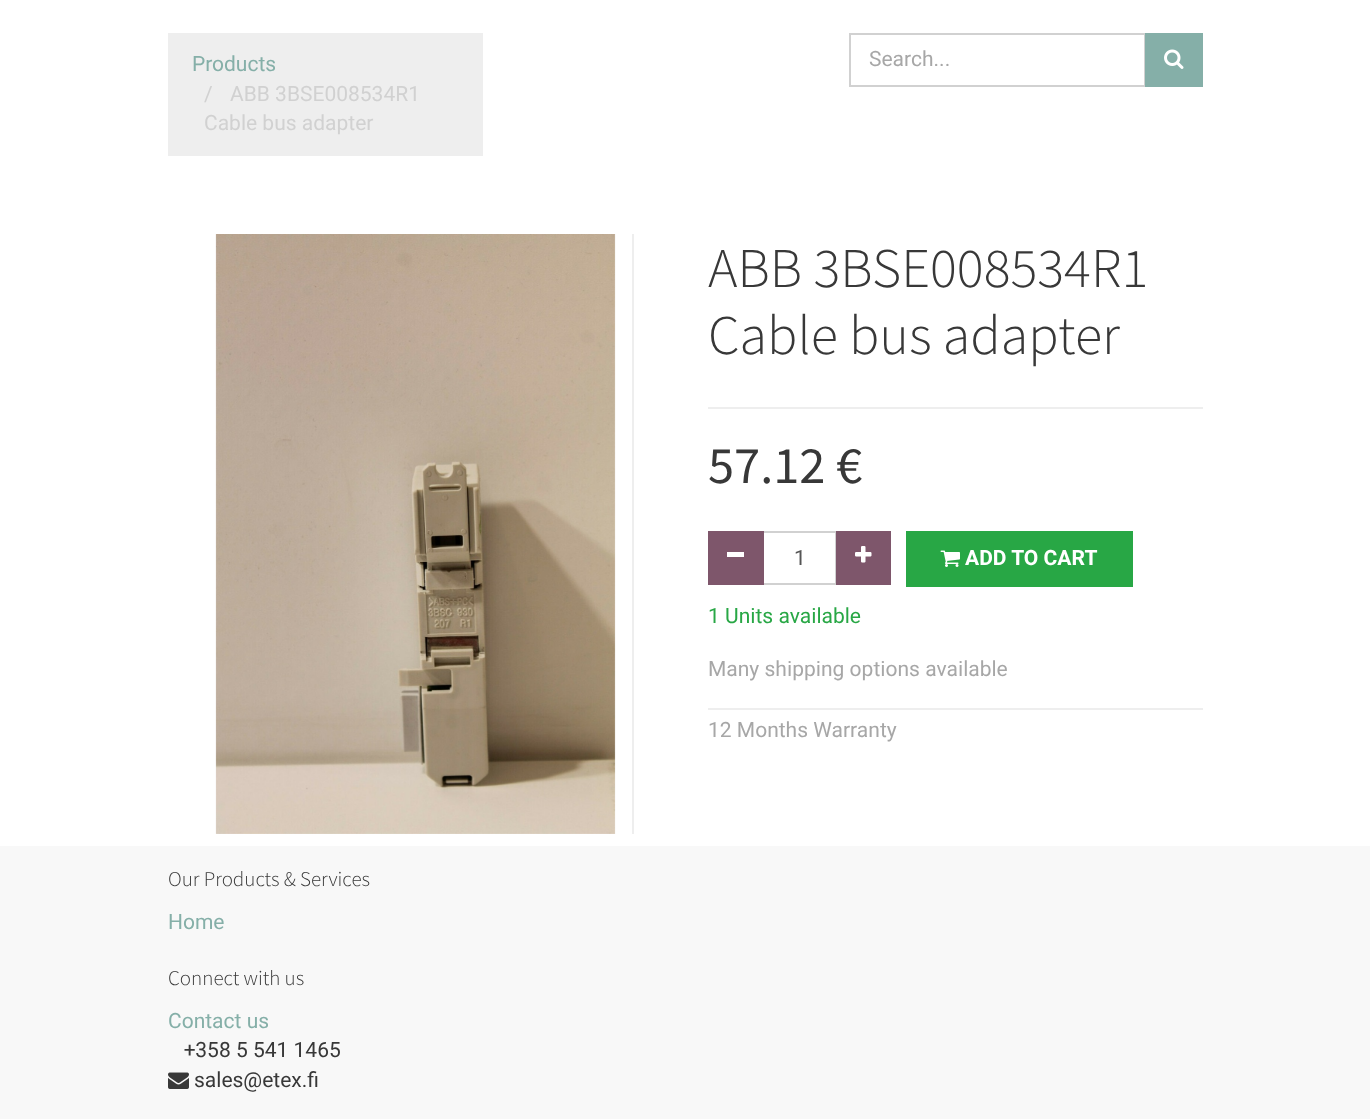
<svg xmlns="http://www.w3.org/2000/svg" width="1370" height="1119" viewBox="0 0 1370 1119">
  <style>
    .t1 { font: 21px Heebo; fill: #85afa8; }
    .t2 { font: 21px Heebo; fill: #d1d1d1; }
    .t3 { font: 21px Heebo; fill: #a7a7a7; }
    .t4 { font: 300 56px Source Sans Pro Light; fill: #383838; }
    .t5 { font: 52.5px Source Sans Pro; fill: #383838; }
    .t6 { font: 21px Heebo; fill: #555; }
    .t7 { font: bold 21px Heebo; fill: #fff; }
    .t8 { font: 21px Heebo; fill: #28a745; }
    .t9 { font: 300 21px Source Sans Pro Light; fill: #383838; }
    .t10 { font: 21px Heebo; fill: #383838; }
  </style>
  <rect width="100%" height="100%" fill="#fff"/>
  <rect x="168" y="33" width="315" height="123" fill="#eee"/>
  <text x="192" y="71" class="t1">Products</text>
  <text x="204" y="101" class="t2">/</text>
  <text x="230" y="101" class="t2">ABB 3BSE008534R1</text>
  <text x="204" y="130" class="t2">Cable bus adapter</text>
  <rect x="850" y="34" width="295" height="52" fill="none" stroke="#d1d1d1" stroke-width="2"/>
  <text x="869" y="66" class="t3">Search...</text>
  <rect x="1145" y="33" width="58" height="54" fill="#85afa8"/>
  <image x="1164" y="49" width="20" height="20" href="images/1.png"/>
  <image x="215" y="234" width="401" height="600" href="images/2.png"/>
  <rect x="632" y="234" width="2" height="600" fill="#eee"/>
  <text x="708" y="287" class="t4">ABB 3BSE008534R1</text>
  <text x="708" y="354" class="t4">Cable bus adapter</text>
  <rect x="708" y="407" width="495" height="2" fill="#eee"/>
  <text x="708" y="483" class="t5">57.12 €</text>
  <rect x="763" y="532" width="73" height="52" fill="none" stroke="#d1d1d1" stroke-width="2"/>
  <rect x="708" y="531" width="56" height="54" fill="#7e566b"/>
  <rect x="727" y="552" width="17" height="5" fill="#fff"/>
  <text x="794" y="565" class="t6">1</text>
  <rect x="836" y="531" width="55" height="54" fill="#7e566b"/>
  <image x="855" y="546" width="17" height="17" href="images/3.png"/>
  <rect x="906" y="531" width="227" height="56" fill="#28a745"/>
  <image x="940" y="550" width="20" height="17" href="images/4.png"/>
  <text x="965" y="565" class="t7">ADD TO CART</text>
  <text x="708" y="623" class="t8">1 Units available</text>
  <text x="708" y="676" class="t3">Many shipping options available</text>
  <rect x="708" y="708" width="495" height="2" fill="#eee"/>
  <text x="708" y="737" class="t3">12 Months Warranty</text>
  <rect x="0" y="846" width="1370" height="273" fill="#f8f8f8"/>
  <text x="168" y="886" class="t9">Our Products &amp; Services</text>
  <text x="168" y="929" class="t1">Home</text>
  <text x="168" y="985" class="t9">Connect with us</text>
  <text x="168" y="1028" class="t1">Contact us</text>
  <text x="184" y="1057" class="t10">+358 5 541 1465</text>
  <image x="168" y="1072" width="21" height="17" href="images/5.png"/>
  <text x="194" y="1087" class="t10">sales@etex.fi</text>
</svg>
